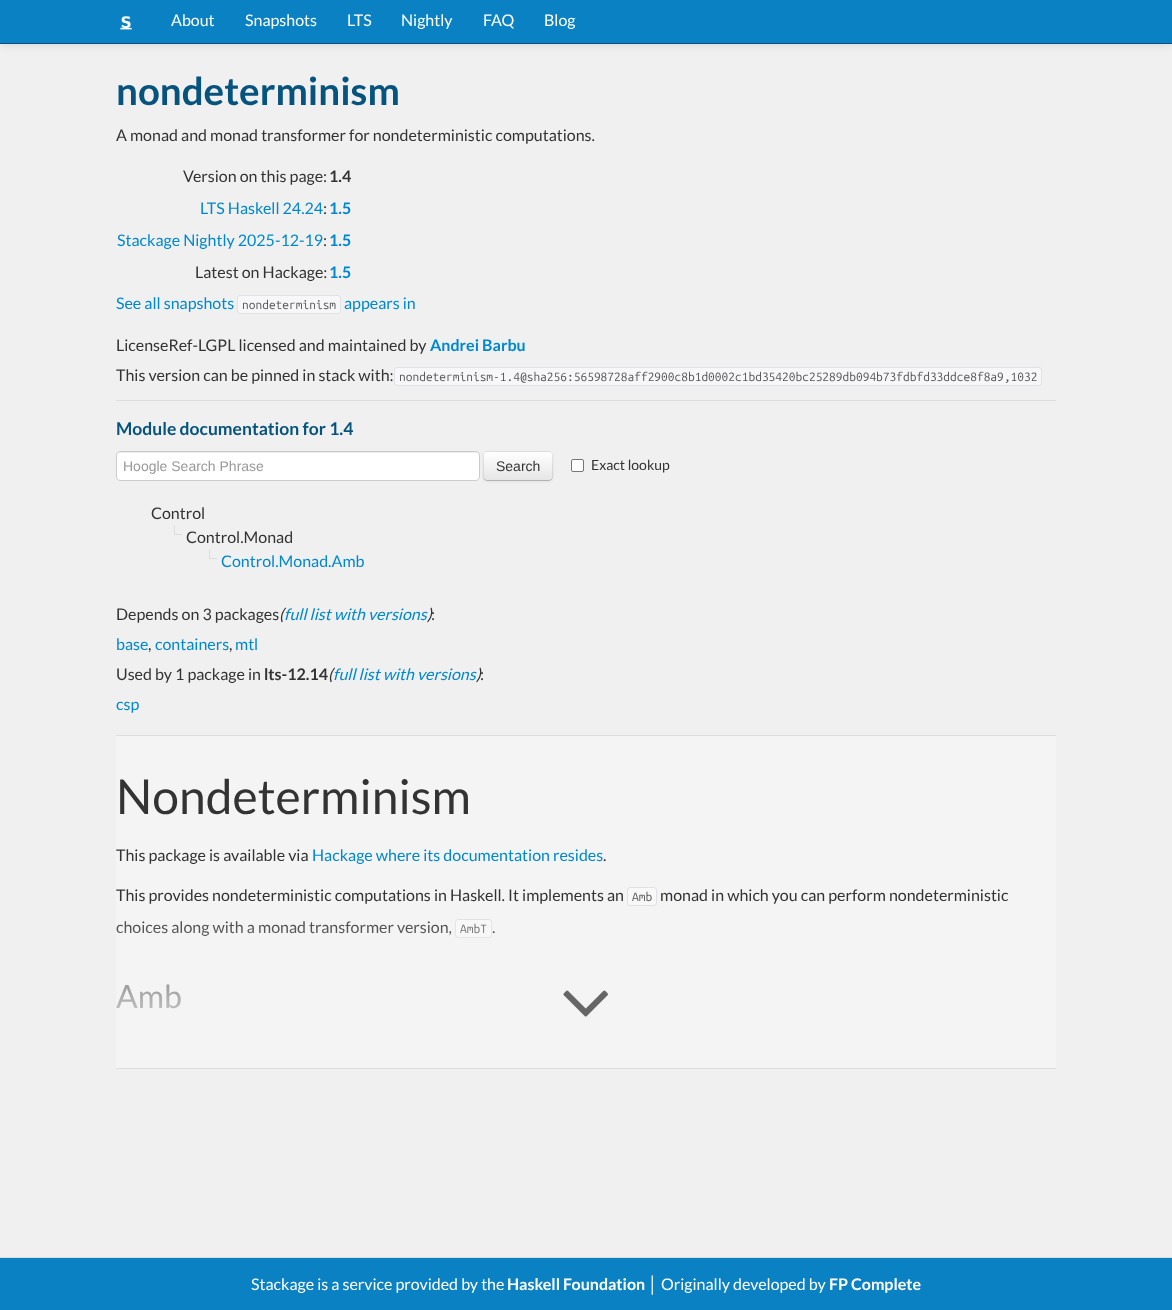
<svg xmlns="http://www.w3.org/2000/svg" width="1172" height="1310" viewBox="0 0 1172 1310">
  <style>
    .t1 { font: 16px Lato; fill: #fff; }
    .t2 { font: bold 38.5px Lato; fill: #06537d; }
    .t3 { font: 16px Lato; fill: #333; }
    .t4 { font: bold 16px Lato; fill: #333; }
    .t5 { font: 16px Lato; fill: #08c; }
    .t6 { font: bold 16px Lato; fill: #08c; }
    .t7 { font: 12px Ubuntu Mono; fill: #555; }
    .t8 { font: bold 17.5px Lato; fill: #06537d; }
    .t9 { font: 14px Liberation Sans; fill: #999; }
    .t10 { font: 14px Liberation Sans; fill: #333; }
    .t11 { font: 14px Lato; fill: #333; }
    .t12 { font: italic 16px Lato; fill: #333; }
    .t13 { font: italic 16px Lato; fill: #08c; }
    .t14 { font: 48px Lato; fill: #333; }
    .t15 { font: 32px Lato; fill: #333; }
    .t16 { font: bold 16px Lato; fill: #fff; }
    .t17 { font: 16px Liberation Sans; fill: #fff; }
  </style>
  <defs>
    <clipPath id="clip1"><rect x="483" y="451" width="70" height="30" rx="4"/></clipPath>
    <linearGradient id="g1" gradientUnits="userSpaceOnUse" x1="518" y1="452" x2="518" y2="480"><stop offset="0" stop-color="#fff"/><stop offset="1" stop-color="#e6e6e6"/></linearGradient>
    <linearGradient id="g2" gradientUnits="userSpaceOnUse" x1="586" y1="902" x2="586" y2="1052"><stop offset="0" stop-color="#f4f4f4" stop-opacity="0"/><stop offset="1" stop-color="#f4f4f4"/></linearGradient>
  </defs>
  <rect width="100%" height="100%" fill="#f0f0f0"/>
  <rect x="0" y="1" width="1172" height="44" fill="#0000001a" filter="blur(5px)"/>
  <rect x="0" y="0" width="1172" height="43" fill="#0981c3"/>
  <rect x="0" y="43" width="1172" height="1" fill="#06537d"/>
  <image x="120" y="16" width="12" height="14" href="images/1.png"/>
  <text x="171" y="26" class="t1">About</text>
  <text x="245" y="26" class="t1">Snapshots</text>
  <text x="347" y="26" class="t1">LTS</text>
  <text x="401" y="26" class="t1">Nightly</text>
  <text x="483" y="26" class="t1">FAQ</text>
  <text x="544" y="26" class="t1">Blog</text>
  <text x="116" y="105" class="t2">nondeterminism</text>
  <text x="116" y="141" class="t3">A monad and monad transformer for nondeterministic computations.</text>
  <text x="183" y="182" class="t3">Version on this page:</text>
  <text x="329" y="182" class="t4">1.4</text>
  <text x="200" y="214" class="t5">LTS Haskell 24.24</text>
  <text x="323" y="214" class="t3">:</text>
  <text x="329" y="214" class="t6">1.5</text>
  <text x="117" y="246" class="t5">Stackage Nightly 2025-12-19</text>
  <text x="323" y="246" class="t3">:</text>
  <text x="329" y="246" class="t6">1.5</text>
  <text x="195" y="278" class="t3">Latest on Hackage:</text>
  <text x="329" y="278" class="t6">1.5</text>
  <text x="116" y="309" class="t5">See all snapshots</text>
  <rect x="237.5" y="295.5" width="103" height="18" rx="2.5" fill="#f7f7f9" stroke="#e1e1e8"/>
  <text x="242" y="309" class="t7">nondeterminism</text>
  <text x="344" y="309" class="t5">appears in</text>
  <text x="116" y="351" class="t3">LicenseRef-LGPL licensed and maintained by</text>
  <text x="430" y="351" class="t6">Andrei Barbu</text>
  <text x="116" y="381" class="t3">This version can be pinned in stack with:</text>
  <rect x="394.5" y="367.5" width="647" height="18" rx="2.5" fill="#f7f7f9" stroke="#e1e1e8"/>
  <text x="399" y="381" class="t7">nondeterminism-1.4@sha256:56598728aff2900c8b1d0002c1bd35420bc25289db094b73fdbfd33ddce8f8a9,1032</text>
  <rect x="116" y="400" width="940" height="1" fill="#ddd"/>
  <text x="116" y="435" class="t8">Module documentation for 1.4</text>
  <rect x="116" y="451" width="364" height="30" rx="4" fill="#fff"/>
  <path d="M120 453H476C478 453 479 454 479 456C479 454 478 452 476 452H120L118 453L117 456C117 454 118 453 120 453Z" fill="#ececec"/>
  <rect x="116.5" y="451.5" width="363" height="29" rx="3.5" fill="none" stroke="#ccc"/>
  <text x="123" y="471" class="t9">Hoogle Search Phrase</text>
  <rect x="483" y="452" width="70" height="30" rx="4" fill="#0000000d" filter="blur(1px)"/>
  <rect x="483" y="451" width="70" height="30" rx="4" fill="#f5f5f5"/>
  <g clip-path="url(#clip1)">
    <rect x="483" y="452" width="70" height="28" fill="url(#g1)"/>
  </g>
  <path d="M551.5 479.5L549.5 480.5H486.5L484.5 479.5" fill="none" stroke="#b3b3b3"/>
  <path d="M484.5 479.5C482.5 477.5 483.5 469 483.5 466C483.5 450 481 451.5 497.5 451.5H538.5C555 451.5 552.5 450 552.5 466C552.5 469 553.5 477.5 551.5 479.5" fill="none" stroke="#0000001a"/>
  <text x="496" y="471" class="t10">Search</text>
  <rect x="571.5" y="459.5" width="12" height="12" rx="1.5" fill="#fff" stroke="#767676"/>
  <text x="591" y="470" class="t11">Exact lookup</text>
  <text x="151" y="519" class="t3">Control</text>
  <rect x="174" y="525" width="1" height="9" fill="#ddd"/>
  <rect x="174" y="534" width="8" height="1" fill="#ddd"/>
  <text x="186" y="543" class="t3">Control.Monad</text>
  <rect x="209" y="549" width="1" height="9" fill="#ddd"/>
  <rect x="209" y="558" width="8" height="1" fill="#ddd"/>
  <text x="221" y="567" class="t5">Control.Monad.Amb</text>
  <text x="116" y="620" class="t3">Depends on 3 packages</text>
  <text x="279" y="620" class="t12">(</text>
  <text x="284" y="620" class="t13">full list with versions</text>
  <text x="427" y="620" class="t12">)</text>
  <text x="431" y="620" class="t3">:</text>
  <text x="116" y="650" class="t5">base</text>
  <text x="148" y="650" class="t3">,</text>
  <text x="155" y="650" class="t5">containers</text>
  <text x="229" y="650" class="t3">,</text>
  <text x="235" y="650" class="t5">mtl</text>
  <text x="116" y="680" class="t3">Used by 1 package in</text>
  <text x="264" y="680" class="t4">lts-12.14</text>
  <text x="328" y="680" class="t12">(</text>
  <text x="333" y="680" class="t13">full list with versions</text>
  <text x="476" y="680" class="t12">)</text>
  <text x="480" y="680" class="t3">:</text>
  <text x="116" y="710" class="t5">csp</text>
  <rect x="116" y="736" width="940" height="332" fill="#f4f4f4"/>
  <rect x="116" y="735" width="940" height="1" fill="#ddd"/>
  <rect x="116" y="1068" width="940" height="1" fill="#ddd"/>
  <text x="116" y="814" class="t14">Nondeterminism</text>
  <text x="116" y="861" class="t3">This package is available via</text>
  <text x="312" y="861" class="t5">Hackage where its documentation resides</text>
  <text x="603" y="861" class="t3">.</text>
  <text x="116" y="901" class="t3">This provides nondeterministic computations in Haskell. It implements an</text>
  <rect x="627.5" y="887.5" width="29" height="18" rx="2.5" fill="#f8f8f8" stroke="#e1e1e8"/>
  <text x="632" y="901" class="t7">Amb</text>
  <text x="660" y="901" class="t3">monad in which you can perform nondeterministic</text>
  <text x="116" y="933" class="t3">choices along with a monad transformer version,</text>
  <rect x="455.5" y="919.5" width="36" height="18" rx="2.5" fill="#f8f8f8" stroke="#e1e1e8"/>
  <text x="460" y="933" class="t7">AmbT</text>
  <text x="492" y="933" class="t3">.</text>
  <text x="116" y="1008" class="t15">Amb</text>
  <rect x="116" y="921" width="379" height="88" fill="url(#g2)"/>
  <image x="563" y="990" width="45" height="27" href="images/2.png"/>
  <rect x="0" y="1258" width="1172" height="52" fill="#0981c3"/>
  <rect x="0" y="1257" width="1172" height="1" fill="#ddd"/>
  <text x="251" y="1290" class="t1">Stackage is a service provided by the</text>
  <text x="507" y="1290" class="t16">Haskell Foundation</text>
  <text x="648" y="1290" class="t17">│</text>
  <text x="661" y="1290" class="t1">Originally developed by</text>
  <text x="829" y="1290" class="t16">FP Complete</text>
</svg>
